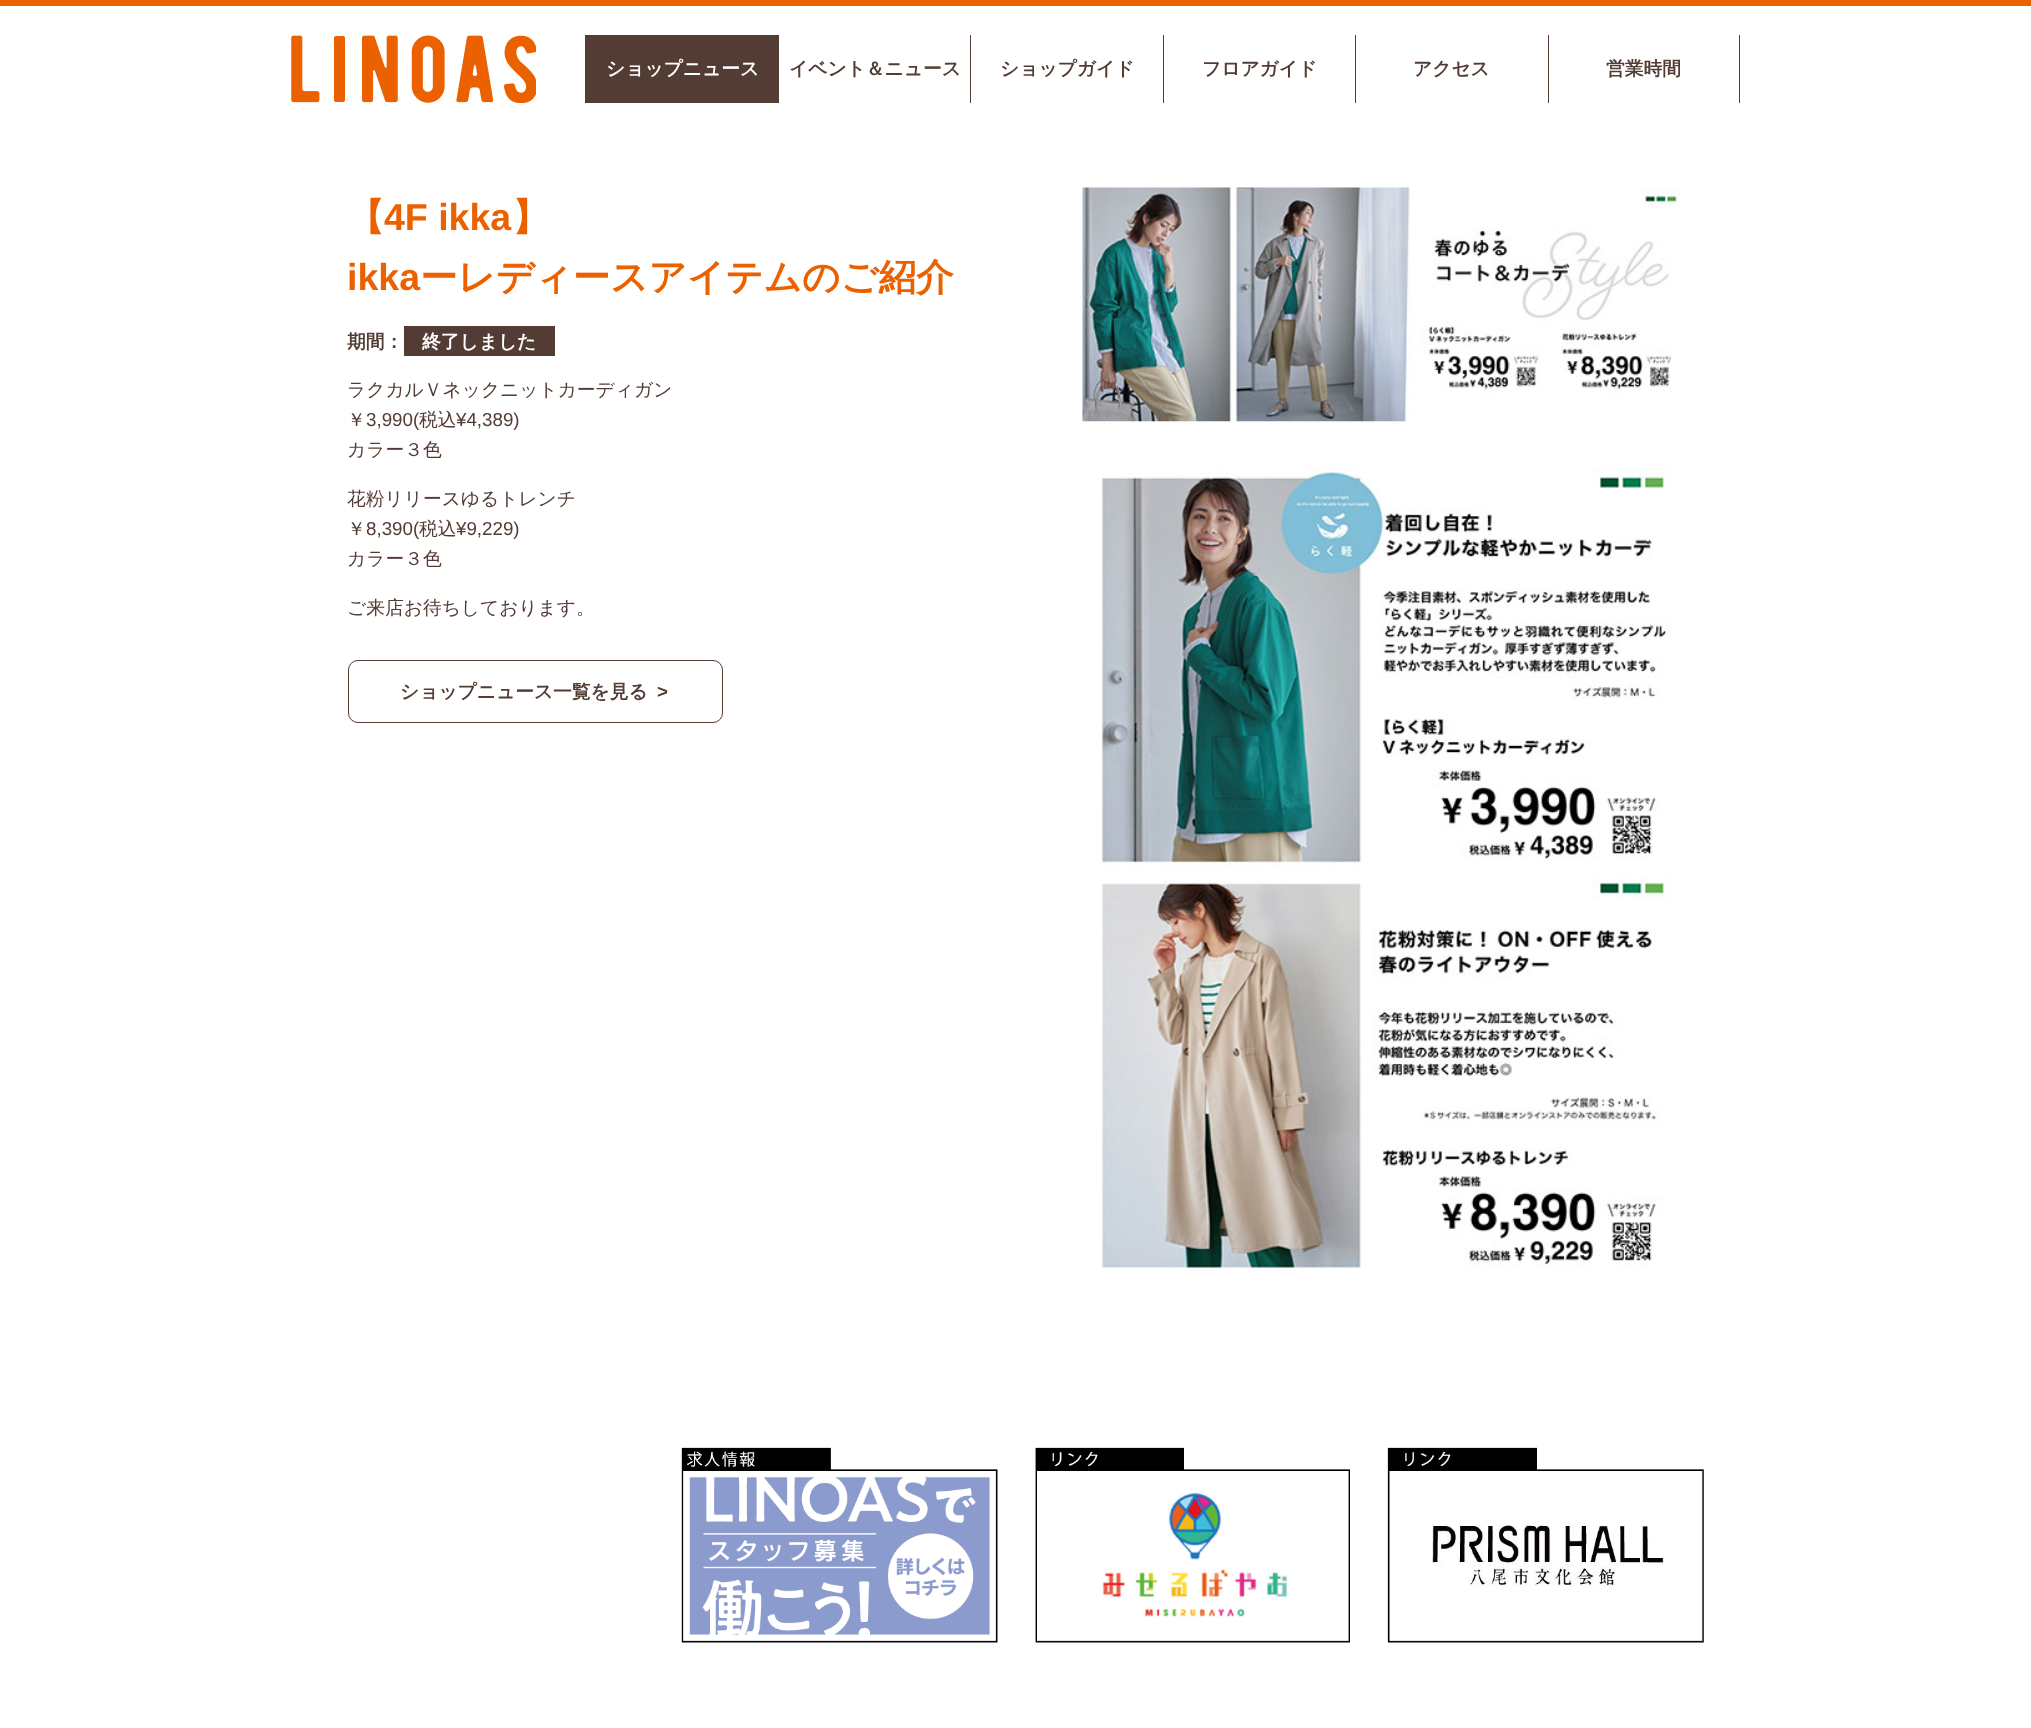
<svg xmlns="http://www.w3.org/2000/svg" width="2031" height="1728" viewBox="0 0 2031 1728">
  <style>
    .t1 { font: bold 18.75px WenQuanYi Zen Hei; fill: #fff; }
    .t2 { font: bold 18.75px WenQuanYi Zen Hei; fill: #533c34; }
    .t3 { font: bold 37.5px WenQuanYi Zen Hei; fill: #eb6100; }
    .t4 { font: bold 37.5px Liberation Sans; fill: #eb6100; }
    .t5 { font: 500 18.75px WenQuanYi Zen Hei; fill: #533c34; }
    .t6 { font: 18.75px Liberation Sans; fill: #533c34; }
    .t7 { font: bold 18.75px Liberation Sans; fill: #533c34; }
  </style>
  <rect width="100%" height="100%" fill="#fff"/>
  <rect x="0" y="0" width="2031" height="6" fill="#eb6100"/>
  <rect x="585" y="35" width="1" height="68" fill="#533c34"/>
  <image x="291" y="35" width="245" height="68" href="images/1.png"/>
  <rect x="586" y="35" width="193" height="68" fill="#533c34"/>
  <text x="606" y="75" class="t1">ショップニュース</text>
  <rect x="970" y="35" width="1" height="68" fill="#533c34"/>
  <text x="789" y="75" class="t2">イベント＆ニュース</text>
  <rect x="1163" y="35" width="1" height="68" fill="#533c34"/>
  <text x="1000" y="75" class="t2">ショップガイド</text>
  <rect x="1355" y="35" width="1" height="68" fill="#533c34"/>
  <text x="1202" y="75" class="t2">フロアガイド</text>
  <rect x="1548" y="35" width="1" height="68" fill="#533c34"/>
  <text x="1413" y="75" class="t2">アクセス</text>
  <rect x="1739" y="35" width="1" height="68" fill="#533c34"/>
  <text x="1606" y="75" class="t2">営業時間</text>
  <text x="347" y="230" class="t3">【</text>
  <text x="384" y="230" class="t4">4F ikka</text>
  <text x="512" y="230" class="t3">】</text>
  <text x="347" y="290" class="t4">ikka</text>
  <text x="420" y="290" class="t3">ーレディースアイテムのご紹介</text>
  <text x="347" y="348" class="t2">期間：</text>
  <rect x="404" y="326" width="151" height="30" fill="#533c34"/>
  <text x="422" y="348" class="t1">終了しました</text>
  <text x="347" y="396" class="t5">ラクカルＶネックニットカーディガン</text>
  <text x="347" y="426" class="t5">￥</text>
  <text x="366" y="426" class="t6">3,990(</text>
  <text x="419" y="426" class="t5">税込</text>
  <text x="456" y="426" class="t6">¥4,389)</text>
  <text x="347" y="456" class="t5">カラー３色</text>
  <text x="347" y="505" class="t5">花粉リリースゆるトレンチ</text>
  <text x="347" y="535" class="t5">￥</text>
  <text x="366" y="535" class="t6">8,390(</text>
  <text x="419" y="535" class="t5">税込</text>
  <text x="456" y="535" class="t6">¥9,229)</text>
  <text x="347" y="565" class="t5">カラー３色</text>
  <text x="347" y="614" class="t5">ご来店お待ちしております。</text>
  <rect x="348.5" y="660.5" width="374" height="62" rx="9.5" fill="none" stroke="#533c34"/>
  <text x="400" y="698" class="t2">ショップニュース一覧を見る</text>
  <text x="657" y="698" class="t7">&gt;</text>
  <image x="1082" y="187" width="600" height="235" href="images/2.png"/>
  <image x="1101" y="469" width="570" height="799" href="images/3.png"/>
  <image x="681" y="1447" width="317" height="196" href="images/4.png"/>
  <image x="1035" y="1447" width="315" height="196" href="images/5.png"/>
  <image x="1387" y="1447" width="317" height="196" href="images/6.png"/>
</svg>
